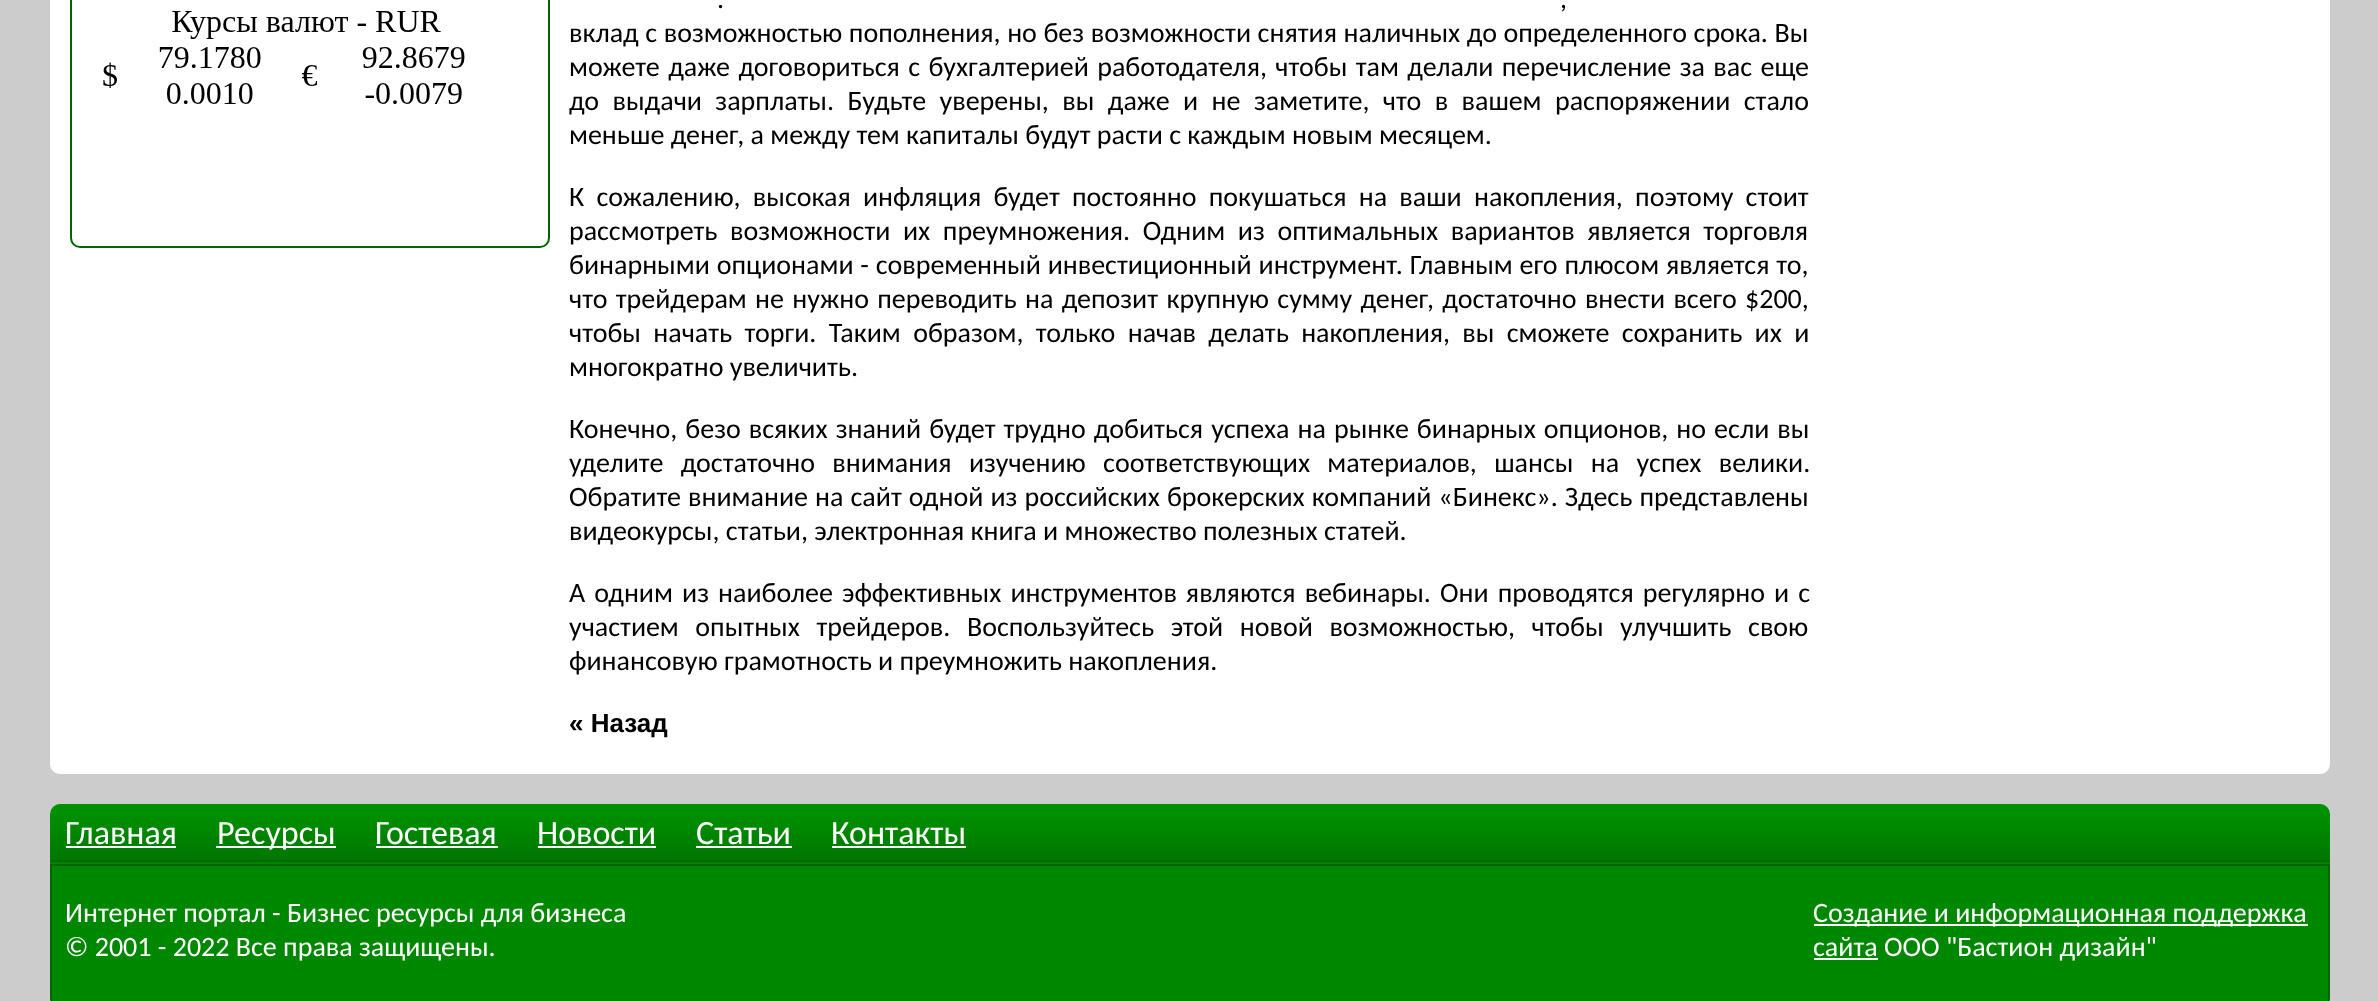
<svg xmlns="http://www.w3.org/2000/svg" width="2378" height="1001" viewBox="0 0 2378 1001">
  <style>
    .t1 { font: 28px Carlito; fill: #000; }
    .t2 { font: bold 26px Liberation Sans; fill: #000; }
    .t3 { font: 34px Carlito; fill: #fff; }
    .t4 { font: 28px Carlito; fill: #fff; }
  </style>
  <rect width="100%" height="100%" fill="#ccc"/>
  <path d="M50-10H2330V764C2330 769.5 2325.5 774 2320 774H60C54.5 774 50 769.5 50 764Z" fill="#fff"/>
  <path d="M71-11H549V238C549 243 545 247 540 247H80C75 247 71 243 71 238Z" fill="none" stroke="#006400" stroke-width="2"/>
  <image x="103" y="11" width="362" height="93" href="images/1.png"/>
  <text x="717" y="8" word-spacing="1" class="t1">.</text>
  <text x="1560" y="8" word-spacing="1" class="t1">,</text>
  <text x="569" y="42" word-spacing="0.25" class="t1">вклад с возможностью пополнения, но без возможности снятия наличных до определенного срока. Вы</text>
  <text x="569" y="76" word-spacing="2.1" class="t1">можете даже договориться с бухгалтерией работодателя, чтобы там делали перечисление за вас еще</text>
  <text x="569" y="110" word-spacing="7.1" class="t1">до выдачи зарплаты. Будьте уверены, вы даже и не заметите, что в вашем распоряжении стало</text>
  <text x="569" y="144" class="t1">меньше денег, а между тем капиталы будут расти с каждым новым месяцем.</text>
  <text x="569" y="206" word-spacing="5.9" class="t1">К сожалению, высокая инфляция будет постоянно покушаться на ваши накопления, поэтому стоит</text>
  <text x="569" y="240" word-spacing="6.25" class="t1">рассмотреть возможности их преумножения. Одним из оптимальных вариантов является торговля</text>
  <text x="569" y="274" word-spacing="0.5" class="t1">бинарными опционами - современный инвестиционный инструмент. Главным его плюсом является то,</text>
  <text x="569" y="308" word-spacing="2" class="t1">что трейдерам не нужно переводить на депозит крупную сумму денег, достаточно внести всего $200,</text>
  <text x="569" y="342" word-spacing="6" class="t1">чтобы начать торги. Таким образом, только начав делать накопления, вы сможете сохранить их и</text>
  <text x="569" y="376" class="t1">многократно увеличить.</text>
  <text x="569" y="438" word-spacing="1.7" class="t1">Конечно, безо всяких знаний будет трудно добиться успеха на рынке бинарных опционов, но если вы</text>
  <text x="569" y="472" word-spacing="11" class="t1">уделите достаточно внимания изучению соответствующих материалов, шансы на успех велики.</text>
  <text x="569" y="506" word-spacing="0.75" class="t1">Обратите внимание на сайт одной из российских брокерских компаний «Бинекс». Здесь представлены</text>
  <text x="569" y="540" class="t1">видеокурсы, статьи, электронная книга и множество полезных статей.</text>
  <text x="569" y="602" word-spacing="2.75" class="t1">А одним из наиболее эффективных инструментов являются вебинары. Они проводятся регулярно и с</text>
  <text x="569" y="636" word-spacing="10.25" class="t1">участием опытных трейдеров. Воспользуйтесь этой новой возможностью, чтобы улучшить свою</text>
  <text x="569" y="670" class="t1">финансовую грамотность и преумножить накопления.</text>
  <text x="569" y="732" class="t2">« Назад</text>
  <image x="50" y="804" width="2280" height="60" href="images/2.png"/>
  <text x="65" y="844" class="t3">Главная</text>
  <rect x="66" y="846" width="110" height="2" fill="#fff"/>
  <rect x="216" y="846" width="120" height="2" fill="#fff"/>
  <text x="217" y="844" class="t3">Ресурсы</text>
  <text x="375" y="844" class="t3">Гостевая</text>
  <rect x="376" y="846" width="122" height="2" fill="#fff"/>
  <text x="537" y="844" class="t3">Новости</text>
  <rect x="538" y="846" width="118" height="2" fill="#fff"/>
  <text x="696" y="844" class="t3">Статьи</text>
  <rect x="696" y="846" width="96" height="2" fill="#fff"/>
  <text x="831" y="844" class="t3">Контакты</text>
  <rect x="832" y="846" width="134" height="2" fill="#fff"/>
  <path d="M51 865H2329V998C2329 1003 2325 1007 2320 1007H60C55 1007 51 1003 51 998Z" fill="#008700" stroke="#006400" stroke-width="2"/>
  <text x="65" y="922" class="t4">Интернет портал - Бизнес ресурсы для бизнеса</text>
  <text x="65" y="956" class="t4">© 2001 - 2022 Все права защищены.</text>
  <rect x="1814" y="924" width="494" height="2" fill="#fff"/>
  <text x="1813" y="922" class="t4">Создание и информационная поддержка</text>
  <rect x="1814" y="958" width="64" height="2" fill="#fff"/>
  <text x="1813" y="956" class="t4">сайта ООО "Бастион дизайн"</text>
</svg>
